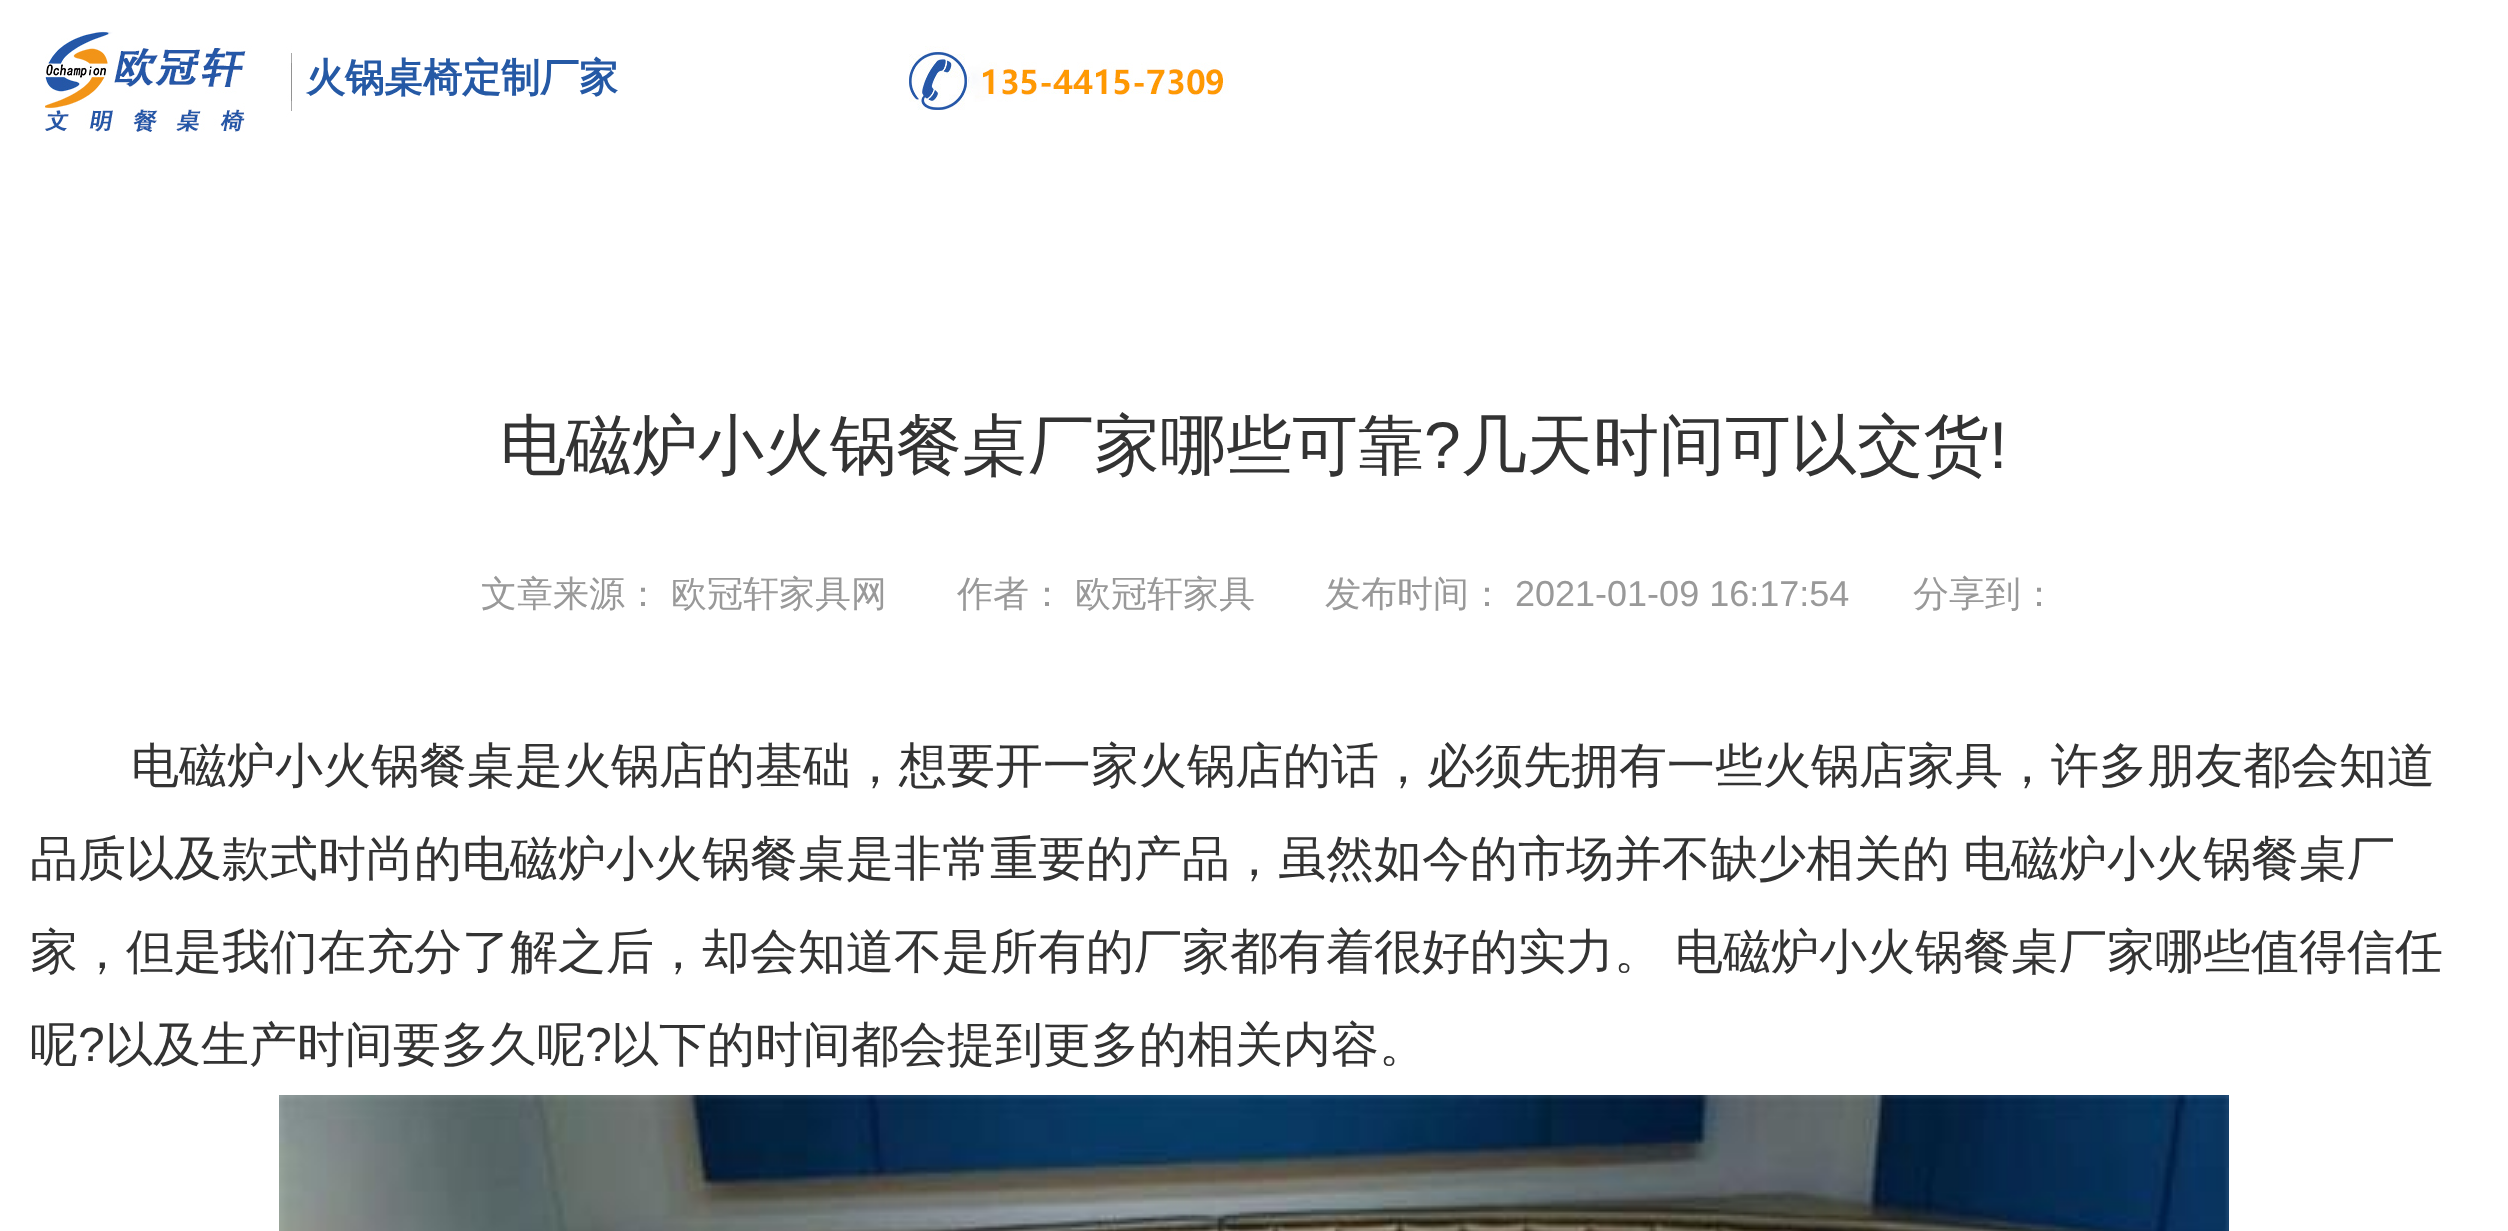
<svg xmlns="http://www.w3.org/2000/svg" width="2508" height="1231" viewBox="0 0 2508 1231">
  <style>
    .t1 { font: bold 39px WenQuanYi Zen Hei; fill: #2559a5; }
    .t2 { font: 500 66px WenQuanYi Zen Hei; fill: #333; }
    .t3 { font: 66px Liberation Sans; fill: #333; }
    .t4 { font: 500 36px WenQuanYi Zen Hei; fill: #999; }
    .t5 { font: 36px Liberation Sans; fill: #999; }
    .t6 { font: 500 48px WenQuanYi Zen Hei; fill: #333; }
    .t7 { font: 48px Liberation Sans; fill: #333; }
  </style>
  <rect width="100%" height="100%" fill="#fff"/>
  <image x="45" y="31" width="247" height="101" href="images/1.png"/>
  <text x="306" y="91" class="t1">火锅桌椅定制厂家</text>
  <image x="909" y="46" width="320" height="64" href="images/2.png"/>
  <text x="500" y="468" class="t2">电磁炉小火锅餐桌厂家哪些可靠</text>
  <text x="1424" y="468" class="t3">?</text>
  <text x="1461" y="468" class="t2">几天时间可以交货</text>
  <text x="1989" y="468" class="t3">!</text>
  <text x="481" y="606" class="t4">文章来源：</text>
  <text x="671" y="606" class="t4">欧冠轩家具网</text>
  <text x="957" y="606" class="t4">作者：</text>
  <text x="1075" y="606" class="t4">欧冠轩家具</text>
  <text x="1325" y="606" class="t4">发布时间：</text>
  <text x="1515" y="606" class="t5">2021-01-09 16:17:54</text>
  <text x="1913" y="606" class="t4">分享到：</text>
  <text x="131" y="782" class="t6">电磁炉小火锅餐桌是火锅店的基础，想要开一家火锅店的话，必须先拥有一些火锅店家具，许多朋友都会知道</text>
  <text x="30" y="875" class="t6">品质以及款式时尚的电磁炉小火锅餐桌是非常重要的产品，虽然如今的市场并不缺少相关的</text>
  <text x="1963" y="875" class="t6">电磁炉小火锅餐桌厂</text>
  <text x="30" y="968" class="t6">家，但是我们在充分了解之后，却会知道不是所有的厂家都有着很好的实力。</text>
  <text x="1675" y="968" class="t6">电磁炉小火锅餐桌厂家哪些值得信任</text>
  <text x="30" y="1061" class="t6">呢</text>
  <text x="78" y="1061" class="t7">?</text>
  <text x="105" y="1061" class="t6">以及生产时间要多久呢</text>
  <text x="585" y="1061" class="t7">?</text>
  <text x="611" y="1061" class="t6">以下的时间都会提到更多的相关内容。</text>
  <image x="279" y="1095" width="1950" height="136" href="images/3.png"/>
</svg>
